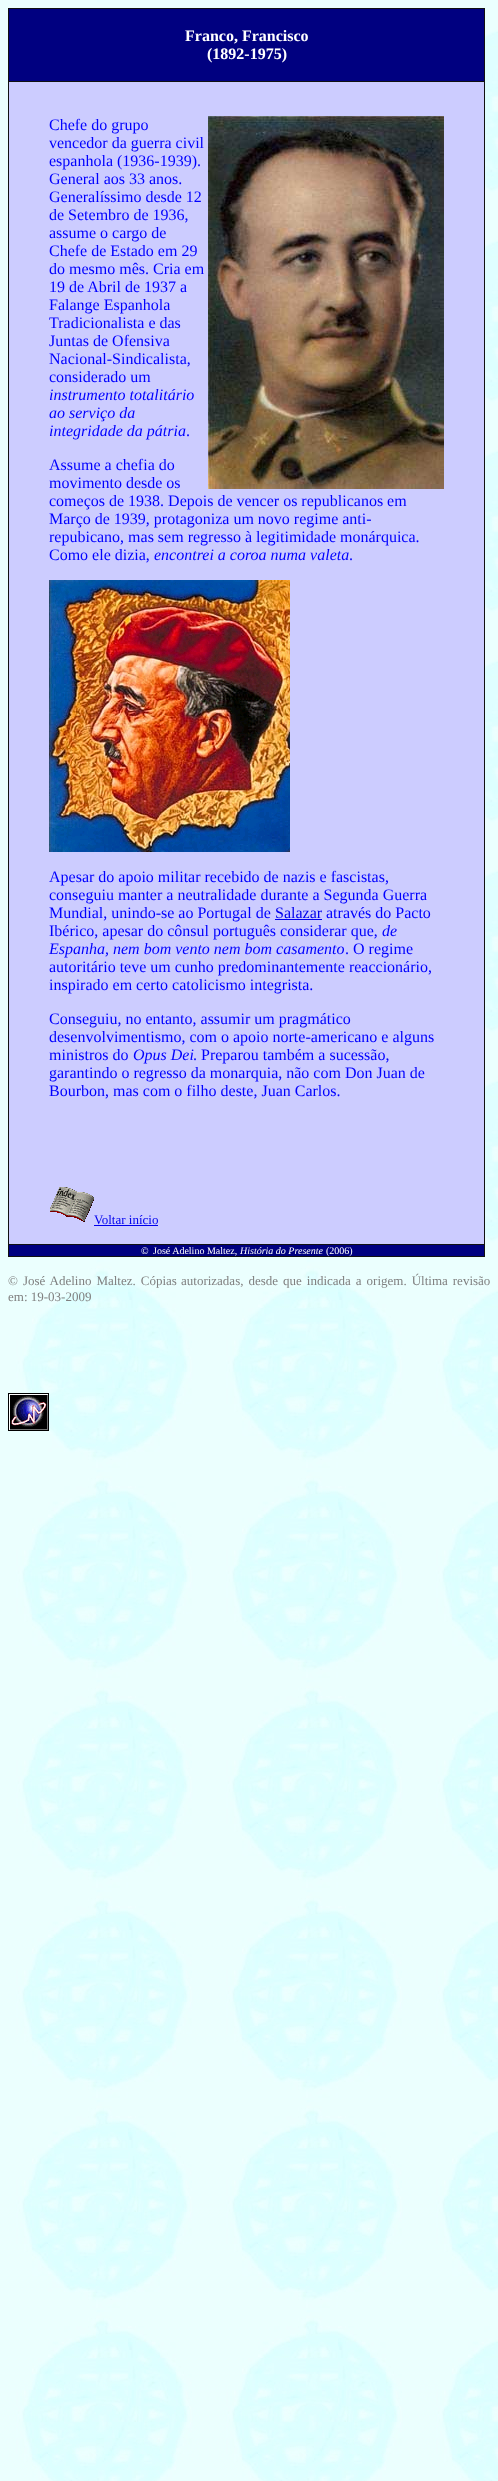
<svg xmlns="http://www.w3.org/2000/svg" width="498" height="2481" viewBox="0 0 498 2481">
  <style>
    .t1 { font: bold 16px Liberation Serif; fill: #fff; }
    .t2 { font: 16px Liberation Serif; fill: #00f; }
    .t3 { font: italic 16px Liberation Serif; fill: #00f; }
    .t4 { font: 16px Liberation Serif; fill: #00e; }
    .t5 { font: 13px Liberation Serif; fill: #00e; }
    .t6 { font: 10px Liberation Serif; fill: #fff; }
    .t7 { font: italic 10px Liberation Serif; fill: #fff; }
    .t8 { font: 13px Liberation Serif; fill: #808080; }
  </style>
  <rect width="100%" height="100%" fill="#fff"/>
  <image x="0" y="0" width="498" height="2481" href="images/1.png"/>
  <rect x="8" y="8" width="477" height="1" fill="#111"/>
  <rect x="484" y="8" width="1" height="1249" fill="#111"/>
  <rect x="8" y="1256" width="477" height="1" fill="#111"/>
  <rect x="8" y="8" width="1" height="1249" fill="#111"/>
  <rect x="9" y="9" width="475" height="72" fill="#000080"/>
  <text x="185" y="41" class="t1">Franco, Francisco</text>
  <text x="207" y="59" class="t1">(1892-1975)</text>
  <rect x="9" y="82" width="475" height="1162" fill="#ccf"/>
  <rect x="8" y="81" width="477" height="1" fill="#111"/>
  <text x="49" y="130" class="t2">Chefe do grupo</text>
  <text x="49" y="148" class="t2">vencedor da guerra civil</text>
  <text x="49" y="166" class="t2">espanhola (1936-1939).</text>
  <text x="49" y="184" class="t2">General aos 33 anos.</text>
  <text x="49" y="202" class="t2">Generalíssimo desde 12</text>
  <text x="49" y="220" class="t2">de Setembro de 1936,</text>
  <text x="49" y="238" class="t2">assume o cargo de</text>
  <text x="49" y="256" class="t2">Chefe de Estado em 29</text>
  <text x="49" y="274" class="t2">do mesmo mês. Cria em</text>
  <text x="49" y="292" class="t2">19 de Abril de 1937 a</text>
  <text x="49" y="310" class="t2">Falange Espanhola</text>
  <text x="49" y="328" class="t2">Tradicionalista e das</text>
  <text x="49" y="346" class="t2">Juntas de Ofensiva</text>
  <text x="49" y="364" class="t2">Nacional-Sindicalista,</text>
  <text x="49" y="382" class="t2">considerado um</text>
  <text x="49" y="400" class="t3">instrumento totalitário</text>
  <text x="49" y="418" class="t3">ao serviço da</text>
  <text x="49" y="436" class="t3">integridade da pátria</text>
  <text x="186" y="436" class="t2">.</text>
  <image x="208" y="116" width="236" height="373" href="images/2.png"/>
  <text x="49" y="470" class="t2">Assume a chefia do</text>
  <text x="49" y="488" class="t2">movimento desde os</text>
  <text x="49" y="506" class="t2">começos de 1938. Depois de vencer os republicanos em</text>
  <text x="49" y="524" class="t2">Março de 1939, protagoniza um novo regime anti-</text>
  <text x="49" y="542" class="t2">repubicano, mas sem regresso à legitimidade monárquica.</text>
  <text x="49" y="560" class="t2">Como ele dizia,</text>
  <text x="154" y="560" class="t3">encontrei a coroa numa valeta</text>
  <text x="349" y="560" class="t2">.</text>
  <image x="49" y="580" width="241" height="272" href="images/3.png"/>
  <text x="49" y="882" class="t2">Apesar do apoio militar recebido de nazis e fascistas,</text>
  <text x="49" y="900" class="t2">conseguiu manter a neutralidade durante a Segunda Guerra</text>
  <text x="49" y="918" class="t2">Mundial, unindo-se ao Portugal de</text>
  <text x="275" y="918" class="t4">Salazar</text>
  <rect x="275" y="919" width="47" height="1" fill="#00e"/>
  <text x="326" y="918" class="t2">através do Pacto</text>
  <text x="49" y="936" class="t2">Ibérico, apesar do cônsul português considerar que,</text>
  <text x="382" y="936" class="t3">de</text>
  <text x="49" y="954" class="t3">Espanha, nem bom vento nem bom casamento</text>
  <text x="345" y="954" class="t2">. O regime</text>
  <text x="49" y="972" class="t2">autoritário teve um cunho predominantemente reaccionário,</text>
  <text x="49" y="990" class="t2">inspirado em certo catolicismo integrista.</text>
  <text x="49" y="1024" class="t2">Conseguiu, no entanto, assumir um pragmático</text>
  <text x="49" y="1042" class="t2">desenvolvimentismo, com o apoio norte-americano e alguns</text>
  <text x="49" y="1060" class="t2">ministros do</text>
  <text x="133" y="1060" class="t3">Opus Dei</text>
  <text x="193" y="1060" class="t2">. Preparou também a sucessão,</text>
  <text x="49" y="1078" class="t2">garantindo o regresso da monarquia, não com Don Juan de</text>
  <text x="49" y="1096" class="t2">Bourbon, mas com o filho deste, Juan Carlos.</text>
  <image x="50" y="1187" width="44" height="35" href="images/4.png"/>
  <text x="94" y="1224" class="t5">Voltar início</text>
  <rect x="94" y="1225" width="64" height="1" fill="#00e"/>
  <rect x="9" y="1245" width="475" height="11" fill="#000080"/>
  <rect x="8" y="1244" width="477" height="1" fill="#111"/>
  <text x="141" y="1254" class="t6">©</text>
  <text x="153" y="1254" class="t6">José Adelino Maltez,</text>
  <text x="240" y="1254" class="t7">História do Presente</text>
  <text x="326" y="1254" class="t6">(2006)</text>
  <text x="8" y="1285" word-spacing="1.75" class="t8">© José Adelino Maltez. Cópias</text>
  <text x="181" y="1285" word-spacing="1.75" class="t8">autorizadas, desde que indicada a origem. Última revisão</text>
  <text x="8" y="1301" class="t8">em: 19-03-2009</text>
  <image x="8" y="1393" width="41" height="38" href="images/5.png"/>
</svg>
